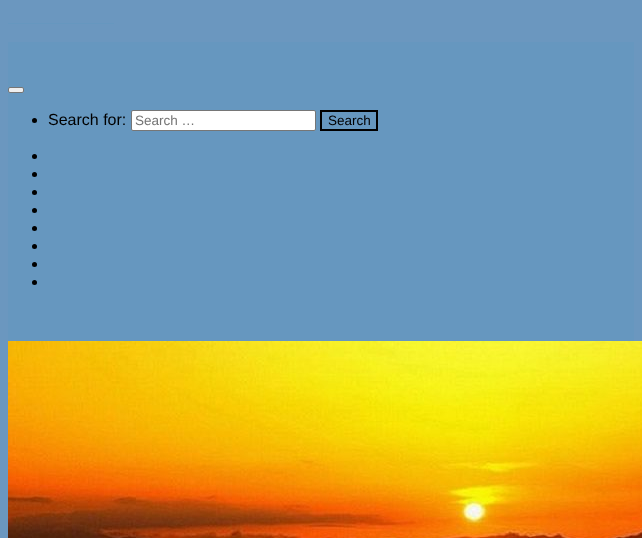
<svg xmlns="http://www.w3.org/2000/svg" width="642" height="538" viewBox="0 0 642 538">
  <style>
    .t1 { font: 16px Liberation Sans; fill: #000; }
    .t2 { font: 13.5px Liberation Sans; fill: #757575; }
    .t3 { font: 13.5px Liberation Sans; fill: #000; }
  </style>
  <rect width="100%" height="100%" fill="#6b97bf"/>
  <rect x="8" y="23" width="106" height="1" fill="#6697bf"/>
  <rect x="8" y="42" width="626" height="299" fill="#6697bf"/>
  <rect x="8.5" y="87.5" width="15" height="5" rx="1.5" fill="#efefef" stroke="#767676"/>
  <circle cx="34.5" cy="120.5" r="2.5" fill="#000"/>
  <text x="48" y="125" class="t1">Search for:</text>
  <rect x="131.5" y="110.5" width="184" height="20" rx="1.5" fill="#fff" stroke="#767676"/>
  <text x="135" y="125" class="t2">Search …</text>
  <rect x="321" y="111" width="56" height="19" fill="none" stroke="#000" stroke-width="2"/>
  <text x="328" y="125" class="t3">Search</text>
  <circle cx="34.5" cy="156.5" r="2.5" fill="#000"/>
  <circle cx="34.5" cy="174.5" r="2.5" fill="#000"/>
  <circle cx="34.5" cy="192.5" r="2.5" fill="#000"/>
  <circle cx="34.5" cy="210.5" r="2.5" fill="#000"/>
  <circle cx="34.5" cy="228.5" r="2.5" fill="#000"/>
  <circle cx="34.5" cy="246.5" r="2.5" fill="#000"/>
  <circle cx="34.5" cy="264.5" r="2.5" fill="#000"/>
  <circle cx="34.5" cy="282.5" r="2.5" fill="#000"/>
  <image x="8" y="341" width="634" height="197" href="images/1.png"/>
</svg>
